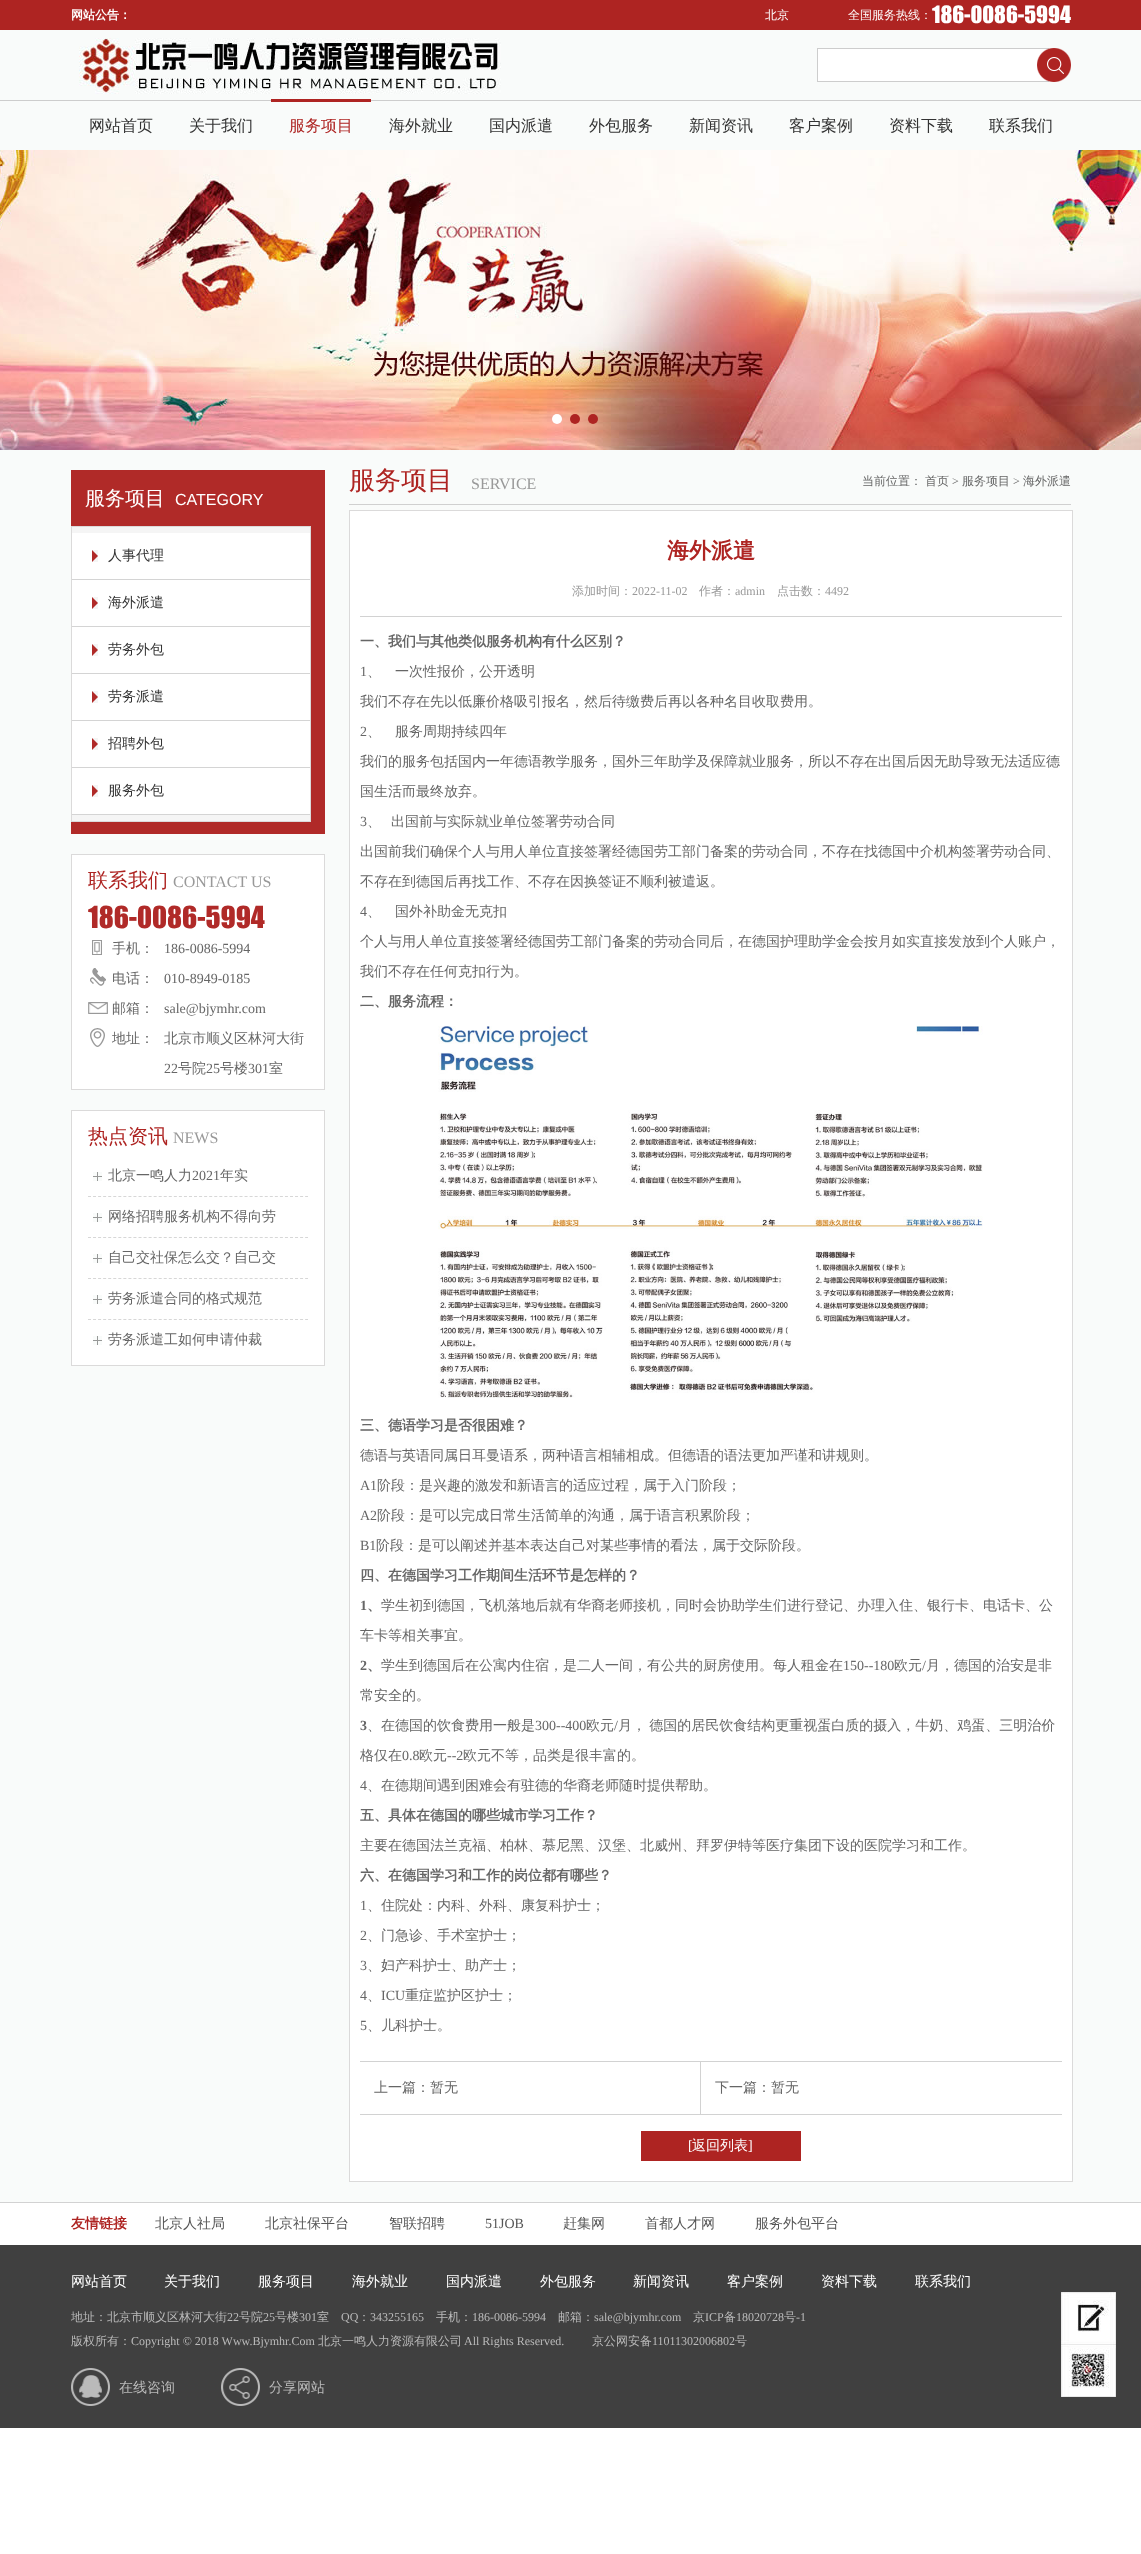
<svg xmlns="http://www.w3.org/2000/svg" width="1141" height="2554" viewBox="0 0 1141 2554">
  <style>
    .t1 { font: bold 12px WenQuanYi Zen Hei; fill: #fff; }
    .t2 { font: 500 12px WenQuanYi Zen Hei; fill: #fff; }
    .t3 { font: 22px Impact; fill: #fff; }
    .t4 { font: 500 16px WenQuanYi Zen Hei; fill: #333; }
    .t5 { font: 500 16px WenQuanYi Zen Hei; fill: #ae2422; }
    .t6 { font: 500 20px WenQuanYi Zen Hei; fill: #fff; }
    .t7 { font: 16px Liberation Sans; fill: #fff; }
    .t8 { font: 500 14px WenQuanYi Zen Hei; fill: #333; }
    .t9 { font: 500 20px WenQuanYi Zen Hei; fill: #ae2422; }
    .t10 { font: 16px Liberation Serif; fill: #999; }
    .t11 { font: 28px Impact; fill: #b02a28; }
    .t12 { font: 500 14px WenQuanYi Zen Hei; fill: #666; }
    .t13 { font: 14px Liberation Serif; fill: #666; }
    .t14 { font: 500 26px WenQuanYi Zen Hei; fill: #ae2422; }
    .t15 { font: 500 12px WenQuanYi Zen Hei; fill: #666; }
    .t16 { font: 12px Liberation Serif; fill: #666; }
    .t17 { font: bold 22px WenQuanYi Zen Hei; fill: #ae2422; }
    .t18 { font: 500 12px WenQuanYi Zen Hei; fill: #999; }
    .t19 { font: 12px Liberation Serif; fill: #999; }
    .t20 { font: bold 14px WenQuanYi Zen Hei; fill: #666; }
    .t21 { font: bold 14px Liberation Serif; fill: #666; }
    .t22 { font: 14px Liberation Serif; fill: #fff; }
    .t23 { font: 500 14px WenQuanYi Zen Hei; fill: #fff; }
    .t24 { font: bold 14px WenQuanYi Zen Hei; fill: #ae2422; }
    .t25 { font: 500 14px WenQuanYi Zen Hei; fill: #565656; }
    .t26 { font: 14px Liberation Serif; fill: #565656; }
    .t27 { font: 500 12px WenQuanYi Zen Hei; fill: #bababa; }
    .t28 { font: 12px Liberation Serif; fill: #bababa; }
    .t29 { font: 500 14px WenQuanYi Zen Hei; fill: #bababa; }
  </style>
  <rect width="100%" height="100%" fill="#fff"/>
  <rect x="0" y="30" width="1141" height="120" fill="#f9fbfa"/>
  <rect x="0" y="0" width="1141" height="30" fill="#ae2422"/>
  <text x="71" y="19" class="t1">网站公告：</text>
  <text x="765" y="19" class="t2">北京</text>
  <text x="848" y="19" class="t2">全国服务热线：</text>
  <text x="932" y="23" class="t3">186-0086-5994</text>
  <image x="79" y="38" width="422" height="56" href="images/1.png"/>
  <rect x="817.5" y="48.5" width="231" height="33" fill="#fff" stroke="#cdcdcd"/>
  <image x="1037" y="48" width="34" height="34" href="images/2.png"/>
  <rect x="0" y="100" width="1141" height="1" fill="#cdcdcd"/>
  <text x="89" y="131" class="t4">网站首页</text>
  <text x="189" y="131" class="t4">关于我们</text>
  <rect x="271" y="99" width="100" height="3" fill="#ae2422"/>
  <text x="289" y="131" class="t5">服务项目</text>
  <text x="389" y="131" class="t4">海外就业</text>
  <text x="489" y="131" class="t4">国内派遣</text>
  <text x="589" y="131" class="t4">外包服务</text>
  <text x="689" y="131" class="t4">新闻资讯</text>
  <text x="789" y="131" class="t4">客户案例</text>
  <text x="889" y="131" class="t4">资料下载</text>
  <text x="989" y="131" class="t4">联系我们</text>
  <image x="0" y="150" width="1141" height="300" href="images/3.png"/>
  <circle cx="557" cy="419" r="5" fill="#fff"/>
  <circle cx="575" cy="419" r="5" fill="#ae2422"/>
  <circle cx="593" cy="419" r="5" fill="#ae2422"/>
  <rect x="0" y="450" width="1141" height="1752" fill="#f9fbfa"/>
  <rect x="71" y="470" width="254" height="364" fill="#b02a28"/>
  <text x="85" y="505" class="t6">服务项目</text>
  <text x="175" y="505" class="t7">CATEGORY</text>
  <rect x="71.5" y="526.5" width="239" height="295" fill="#f5f5f5" stroke="#dbdada"/>
  <rect x="72" y="533" width="238" height="46" fill="#fff"/>
  <rect x="72" y="579" width="238" height="1" fill="#d4d4d4"/>
  <image x="92" y="550" width="6" height="12" href="images/4.png"/>
  <text x="108" y="560" class="t8">人事代理</text>
  <rect x="72" y="580" width="238" height="46" fill="#fff"/>
  <rect x="72" y="626" width="238" height="1" fill="#d4d4d4"/>
  <image x="92" y="597" width="6" height="12" href="images/4.png"/>
  <text x="108" y="607" class="t8">海外派遣</text>
  <rect x="72" y="627" width="238" height="46" fill="#fff"/>
  <rect x="72" y="673" width="238" height="1" fill="#d4d4d4"/>
  <image x="92" y="644" width="6" height="12" href="images/4.png"/>
  <text x="108" y="654" class="t8">劳务外包</text>
  <rect x="72" y="674" width="238" height="46" fill="#fff"/>
  <rect x="72" y="720" width="238" height="1" fill="#d4d4d4"/>
  <image x="92" y="691" width="6" height="12" href="images/4.png"/>
  <text x="108" y="701" class="t8">劳务派遣</text>
  <rect x="72" y="721" width="238" height="46" fill="#fff"/>
  <rect x="72" y="767" width="238" height="1" fill="#d4d4d4"/>
  <image x="92" y="738" width="6" height="12" href="images/4.png"/>
  <text x="108" y="748" class="t8">招聘外包</text>
  <rect x="72" y="768" width="238" height="46" fill="#fff"/>
  <rect x="72" y="814" width="238" height="1" fill="#d4d4d4"/>
  <image x="92" y="785" width="6" height="12" href="images/4.png"/>
  <text x="108" y="795" class="t8">服务外包</text>
  <rect x="71.5" y="854.5" width="253" height="235" fill="#fff" stroke="#dbdada"/>
  <text x="88" y="887" class="t9">联系我们</text>
  <text x="173" y="887" class="t10">CONTACT US</text>
  <text x="88" y="928" class="t11">186-0086-5994</text>
  <image x="92" y="940" width="10" height="15" href="images/5.png"/>
  <text x="112" y="953" class="t12">手机：</text>
  <text x="164" y="953" class="t13">186-0086-5994</text>
  <image x="90" y="968" width="16" height="18" href="images/6.png"/>
  <text x="112" y="983" class="t12">电话：</text>
  <text x="164" y="983" class="t13">010-8949-0185</text>
  <image x="88" y="1002" width="20" height="12" href="images/7.png"/>
  <text x="112" y="1013" class="t12">邮箱：</text>
  <text x="164" y="1013" class="t13">sale@bjymhr.com</text>
  <image x="90" y="1028" width="15" height="19" href="images/8.png"/>
  <text x="112" y="1043" class="t12">地址：</text>
  <text x="164" y="1043" class="t12">北京市顺义区林河大街</text>
  <text x="164" y="1073" class="t13">22</text>
  <text x="178" y="1073" class="t12">号院</text>
  <text x="206" y="1073" class="t13">25</text>
  <text x="220" y="1073" class="t12">号楼</text>
  <text x="248" y="1073" class="t13">301</text>
  <text x="269" y="1073" class="t12">室</text>
  <rect x="71.5" y="1110.5" width="253" height="255" fill="#fff" stroke="#dbdada"/>
  <text x="88" y="1143" class="t9">热点资讯</text>
  <text x="173" y="1143" class="t10">NEWS</text>
  <image x="93" y="1172" width="9" height="9" href="images/9.png"/>
  <path d="M88 1196.5H308" fill="none" stroke="#d7d7d7" stroke-dasharray="3 2.05"/>
  <text x="108" y="1180" class="t12">北京一鸣人力</text>
  <text x="192" y="1180" class="t13">2021</text>
  <text x="220" y="1180" class="t12">年实</text>
  <image x="93" y="1213" width="9" height="9" href="images/9.png"/>
  <path d="M88 1237.5H308" fill="none" stroke="#d7d7d7" stroke-dasharray="3 2.05"/>
  <text x="108" y="1221" class="t12">网络招聘服务机构不得向劳</text>
  <image x="93" y="1254" width="9" height="9" href="images/9.png"/>
  <path d="M88 1278.5H308" fill="none" stroke="#d7d7d7" stroke-dasharray="3 2.05"/>
  <text x="108" y="1262" class="t12">自己交社保怎么交？自己交</text>
  <image x="93" y="1295" width="9" height="9" href="images/9.png"/>
  <path d="M88 1319.5H308" fill="none" stroke="#d7d7d7" stroke-dasharray="3 2.05"/>
  <text x="108" y="1303" class="t12">劳务派遣合同的格式规范</text>
  <image x="93" y="1336" width="9" height="9" href="images/9.png"/>
  <text x="108" y="1344" class="t12">劳务派遣工如何申请仲裁</text>
  <rect x="349" y="504" width="722" height="1" fill="#d0d0d0"/>
  <text x="349" y="489" class="t14">服务项目</text>
  <text x="471" y="489" class="t10">SERVICE</text>
  <text x="862" y="485" class="t15">当前位置：</text>
  <text x="925" y="485" class="t15">首页</text>
  <text x="952" y="485" class="t16">&gt;</text>
  <text x="962" y="485" class="t15">服务项目</text>
  <text x="1013" y="485" class="t16">&gt;</text>
  <text x="1023" y="485" class="t15">海外派遣</text>
  <rect x="349.5" y="510.5" width="723" height="1671" fill="#fff" stroke="#dbdada"/>
  <text x="667" y="558" class="t17">海外派遣</text>
  <rect x="360" y="616" width="702" height="1" fill="#d2d2d2"/>
  <text x="572" y="595" class="t18">添加时间：</text>
  <text x="632" y="595" class="t19">2022-11-02</text>
  <text x="699" y="595" class="t18">作者：</text>
  <text x="735" y="595" class="t19">admin</text>
  <text x="777" y="595" class="t18">点击数：</text>
  <text x="825" y="595" class="t19">4492</text>
  <text x="360" y="646" class="t20">一、我们与其他类似服务机构有什么区别？</text>
  <text x="360" y="676" class="t13">1</text>
  <text x="367" y="676" class="t12">、</text>
  <text x="395" y="676" class="t12">一次性报价，公开透明</text>
  <text x="360" y="706" class="t12">我们不存在先以低廉价格吸引报名，然后待缴费后再以各种名目收取费用。</text>
  <text x="360" y="736" class="t13">2</text>
  <text x="367" y="736" class="t12">、</text>
  <text x="395" y="736" class="t12">服务周期持续四年</text>
  <text x="360" y="766" class="t12">我们的服务包括国内一年德语教学服务，国外三年助学及保障就业服务，所以不存在出国后因无助导致无法适应德</text>
  <text x="360" y="796" class="t12">国生活而最终放弃。</text>
  <text x="360" y="826" class="t13">3</text>
  <text x="367" y="826" class="t12">、</text>
  <text x="391" y="826" class="t12">出国前与实际就业单位签署劳动合同</text>
  <text x="360" y="856" class="t12">出国前我们确保个人与用人单位直接签署经德国劳工部门备案的劳动合同，不存在找德国中介机构签署劳动合同、</text>
  <text x="360" y="886" class="t12">不存在到德国后再找工作、不存在因换签证不顺利被遣返。</text>
  <text x="360" y="916" class="t13">4</text>
  <text x="367" y="916" class="t12">、</text>
  <text x="395" y="916" class="t12">国外补助金无克扣</text>
  <text x="360" y="946" class="t12">个人与用人单位直接签署经德国劳工部门备案的劳动合同后，在德国护理助学金会按月如实直接发放到个人账户，</text>
  <text x="360" y="976" class="t12">我们不存在任何克扣行为。</text>
  <text x="360" y="1006" class="t20">二、服务流程：</text>
  <image x="438" y="1026" width="545" height="372" href="images/10.png"/>
  <text x="360" y="1430" class="t20">三、德语学习是否很困难？</text>
  <text x="360" y="1460" class="t12">德语与英语同属日耳曼语系，两种语言相辅相成。但德语的语法更加严谨和讲规则。</text>
  <text x="360" y="1490" class="t13">A1</text>
  <text x="377" y="1490" class="t12">阶段：是兴趣的激发和新语言的适应过程，属于入门阶段；</text>
  <text x="360" y="1520" class="t13">A2</text>
  <text x="377" y="1520" class="t12">阶段：是可以完成日常生活简单的沟通，属于语言积累阶段；</text>
  <text x="360" y="1550" class="t13">B1</text>
  <text x="376" y="1550" class="t12">阶段：是可以阐述并基本表达自己对某些事情的看法，属于交际阶段。</text>
  <text x="360" y="1580" class="t20">四、在德国学习工作期间生活环节是怎样的？</text>
  <text x="360" y="1610" class="t21">1</text>
  <text x="367" y="1610" class="t20">、</text>
  <text x="381" y="1610" class="t12">学生初到德国，飞机落地后就有华裔老师接机，同时会协助学生们进行登记、办理入住、银行卡、电话卡、公</text>
  <text x="360" y="1640" class="t12">车卡等相关事宜。</text>
  <text x="360" y="1670" class="t21">2</text>
  <text x="367" y="1670" class="t20">、</text>
  <text x="381" y="1670" class="t12">学生到德国后在公寓内住宿，是二人一间，有公共的厨房使用。每人租金在</text>
  <text x="843" y="1670" class="t13">150--180</text>
  <text x="894" y="1670" class="t12">欧元</text>
  <text x="922" y="1670" class="t13">/</text>
  <text x="926" y="1670" class="t12">月，德国的治安是非</text>
  <text x="360" y="1700" class="t12">常安全的。</text>
  <text x="360" y="1730" class="t21">3</text>
  <text x="367" y="1730" class="t12">、在德国的饮食费用一般是</text>
  <text x="535" y="1730" class="t13">300--400</text>
  <text x="586" y="1730" class="t12">欧元</text>
  <text x="614" y="1730" class="t13">/</text>
  <text x="618" y="1730" word-spacing="-1" class="t12">月， 德国的居民饮食结构更重视蛋白质的摄入，牛奶、鸡蛋、三明治价</text>
  <text x="360" y="1760" class="t12">格仅在</text>
  <text x="402" y="1760" class="t13">0.8</text>
  <text x="419" y="1760" class="t12">欧元</text>
  <text x="447" y="1760" class="t13">--2</text>
  <text x="463" y="1760" class="t12">欧元不等，品类是很丰富的。</text>
  <text x="360" y="1790" class="t13">4</text>
  <text x="367" y="1790" class="t12">、在德期间遇到困难会有驻德的华裔老师随时提供帮助。</text>
  <text x="360" y="1820" class="t20">五、具体在德国的哪些城市学习工作？</text>
  <text x="360" y="1850" class="t12">主要在德国法兰克福、柏林、慕尼黑、汉堡、北威州、拜罗伊特等医疗集团下设的医院学习和工作。</text>
  <text x="360" y="1880" class="t20">六、在德国学习和工作的岗位都有哪些？</text>
  <text x="360" y="1910" class="t13">1</text>
  <text x="367" y="1910" class="t12">、住院处：内科、外科、康复科护士；</text>
  <text x="360" y="1940" class="t13">2</text>
  <text x="367" y="1940" class="t12">、门急诊、手术室护士；</text>
  <text x="360" y="1970" class="t13">3</text>
  <text x="367" y="1970" class="t12">、妇产科护士、助产士；</text>
  <text x="360" y="2000" class="t13">4</text>
  <text x="367" y="2000" class="t12">、</text>
  <text x="381" y="2000" class="t13">ICU</text>
  <text x="405" y="2000" class="t12">重症监护区护士；</text>
  <text x="360" y="2030" class="t13">5</text>
  <text x="367" y="2030" class="t12">、儿科护士。</text>
  <rect x="360" y="2061" width="702" height="1" fill="#d2d2d2"/>
  <rect x="360" y="2114" width="702" height="1" fill="#d2d2d2"/>
  <text x="374" y="2092" class="t12">上一篇：暂无</text>
  <rect x="700" y="2062" width="1" height="52" fill="#d2d2d2"/>
  <text x="715" y="2092" class="t12">下一篇：暂无</text>
  <rect x="641" y="2131" width="160" height="30" fill="#ae2422"/>
  <text x="688" y="2150" class="t22">[</text>
  <text x="692" y="2150" class="t23">返回列表</text>
  <text x="748" y="2150" class="t22">]</text>
  <rect x="0" y="2245" width="1141" height="183" fill="#404040"/>
  <rect x="0" y="2202" width="1141" height="1" fill="#d2d2d2"/>
  <text x="71" y="2228" class="t24">友情链接</text>
  <text x="155" y="2228" class="t25">北京人社局</text>
  <text x="265" y="2228" class="t25">北京社保平台</text>
  <text x="389" y="2228" class="t25">智联招聘</text>
  <text x="485" y="2228" class="t26">51JOB</text>
  <text x="563" y="2228" class="t25">赶集网</text>
  <text x="645" y="2228" class="t25">首都人才网</text>
  <text x="755" y="2228" class="t25">服务外包平台</text>
  <text x="71" y="2286" class="t23">网站首页</text>
  <text x="164" y="2286" class="t23">关于我们</text>
  <text x="258" y="2286" class="t23">服务项目</text>
  <text x="352" y="2286" class="t23">海外就业</text>
  <text x="446" y="2286" class="t23">国内派遣</text>
  <text x="540" y="2286" class="t23">外包服务</text>
  <text x="633" y="2286" class="t23">新闻资讯</text>
  <text x="727" y="2286" class="t23">客户案例</text>
  <text x="821" y="2286" class="t23">资料下载</text>
  <text x="915" y="2286" class="t23">联系我们</text>
  <text x="71" y="2321" class="t27">地址：北京市顺义区林河大街</text>
  <text x="227" y="2321" class="t28">22</text>
  <text x="239" y="2321" class="t27">号院</text>
  <text x="263" y="2321" class="t28">25</text>
  <text x="275" y="2321" class="t27">号楼</text>
  <text x="299" y="2321" class="t28">301</text>
  <text x="317" y="2321" class="t27">室</text>
  <text x="341" y="2321" class="t28">QQ</text>
  <text x="358" y="2321" class="t27">：</text>
  <text x="370" y="2321" class="t28">343255165</text>
  <text x="436" y="2321" class="t27">手机：</text>
  <text x="472" y="2321" class="t28">186-0086-5994</text>
  <text x="558" y="2321" class="t27">邮箱：</text>
  <text x="594" y="2321" class="t28">sale@bjymhr.com</text>
  <text x="693" y="2321" class="t27">京</text>
  <text x="705" y="2321" class="t28">ICP</text>
  <text x="724" y="2321" class="t27">备</text>
  <text x="736" y="2321" class="t28">18020728</text>
  <text x="784" y="2321" class="t27">号</text>
  <text x="796" y="2321" class="t28">-1</text>
  <text x="71" y="2345" class="t27">版权所有：</text>
  <text x="131" y="2345" class="t28">Copyright © 2018 Www.Bjymhr.Com</text>
  <text x="318" y="2345" class="t27">北京一鸣人力资源有限公司</text>
  <text x="464" y="2345" class="t28">All Rights Reserved.</text>
  <text x="592" y="2345" class="t27">京公网安备</text>
  <text x="652" y="2345" class="t28">11011302006802</text>
  <text x="735" y="2345" class="t27">号</text>
  <image x="1061" y="2292" width="55" height="53" href="images/11.png"/>
  <image x="1061" y="2345" width="55" height="52" href="images/12.png"/>
  <image x="71" y="2368" width="39" height="38" href="images/13.png"/>
  <text x="119" y="2392" class="t29">在线咨询</text>
  <image x="221" y="2368" width="39" height="38" href="images/14.png"/>
  <text x="269" y="2392" class="t29">分享网站</text>
</svg>
